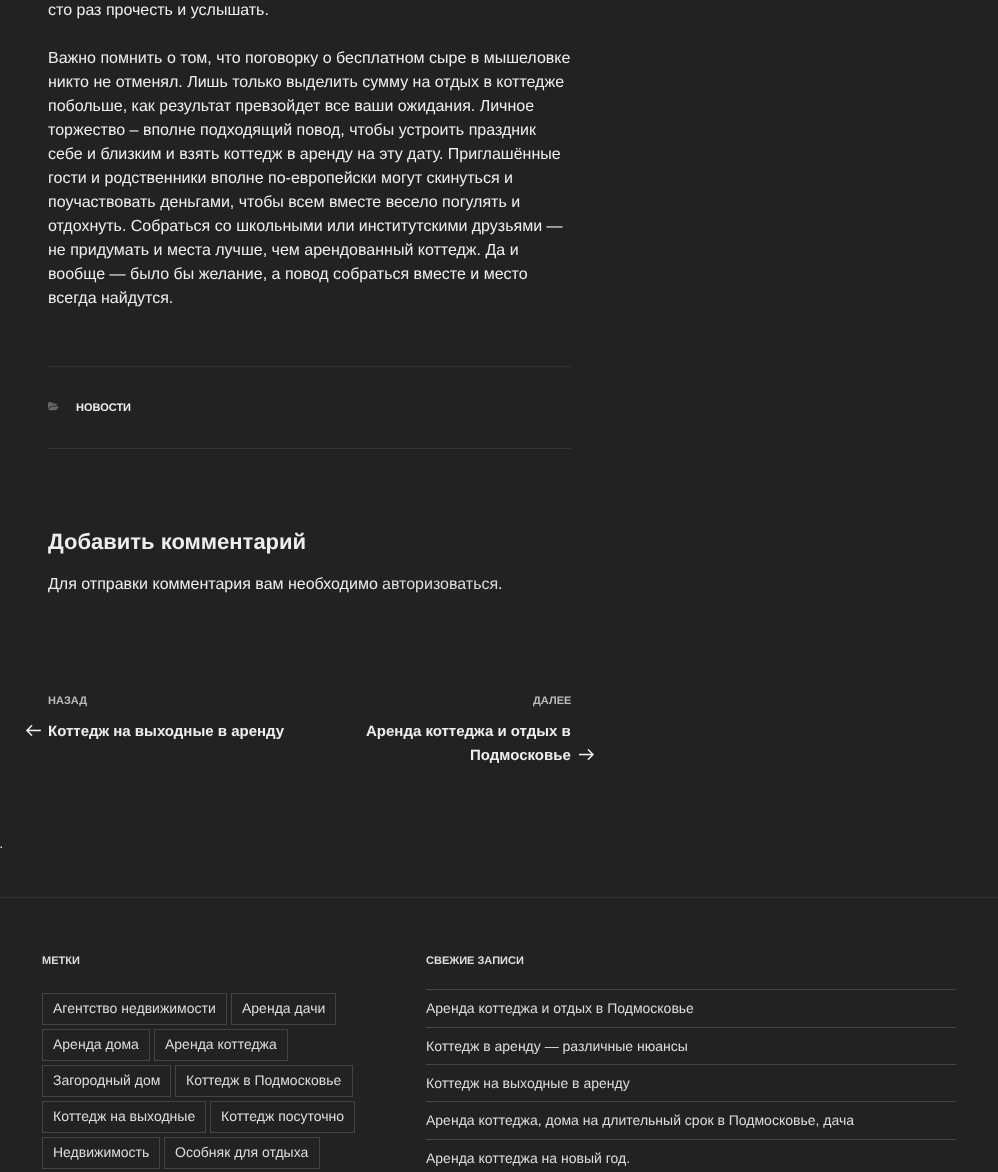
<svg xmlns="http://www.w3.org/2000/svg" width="998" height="1172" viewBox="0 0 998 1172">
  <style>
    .t1 { font: 16px Liberation Sans; fill: #eee; }
    .t2 { font: bold 11px Liberation Sans; fill: #eee; }
    .t3 { font: bold 22px Liberation Sans; fill: #eee; }
    .t4 { font: 16px Liberation Sans; fill: #ddd; }
    .t5 { font: bold 11px Liberation Sans; fill: #bbb; }
    .t6 { font: bold 15px Liberation Sans; fill: #eee; }
    .t7 { font: italic 13px Liberation Sans; fill: #eee; }
    .t8 { font: bold 11px Liberation Sans; fill: #ddd; }
    .t9 { font: 14px Liberation Sans; fill: #ddd; }
  </style>
  <rect width="100%" height="100%" fill="#222"/>
  <text x="48" y="15" class="t1">сто раз прочесть и услышать.</text>
  <text x="48" y="63" class="t1">Важно помнить о том, что поговорку о бесплатном сыре в мышеловке</text>
  <text x="48" y="87" class="t1">никто не отменял. Лишь только выделить сумму на отдых в коттедже</text>
  <text x="48" y="111" class="t1">побольше, как результат превзойдет все ваши ожидания. Личное</text>
  <text x="48" y="135" class="t1">торжество – вполне подходящий повод, чтобы устроить праздник</text>
  <text x="48" y="159" class="t1">себе и близким и взять коттедж в аренду на эту дату. Приглашённые</text>
  <text x="48" y="183" class="t1">гости и родственники вполне по-европейски могут скинуться и</text>
  <text x="48" y="207" class="t1">поучаствовать деньгами, чтобы всем вместе весело погулять и</text>
  <text x="48" y="231" class="t1">отдохнуть. Собраться со школьными или институтскими друзьями —</text>
  <text x="48" y="255" class="t1">не придумать и места лучше, чем арендованный коттедж. Да и</text>
  <text x="48" y="279" class="t1">вообще — было бы желание, а повод собраться вместе и место</text>
  <text x="48" y="303" class="t1">всегда найдутся.</text>
  <rect x="48" y="366" width="523" height="1" fill="#333"/>
  <rect x="48" y="448" width="523" height="1" fill="#333"/>
  <image x="48" y="402" width="11" height="9" href="images/1.png"/>
  <text x="76" y="411" class="t2">НОВОСТИ</text>
  <text x="48" y="549" class="t3">Добавить комментарий</text>
  <text x="48" y="589" class="t1">Для отправки комментария вам необходимо</text>
  <text x="382" y="589" class="t4">авторизоваться</text>
  <text x="498" y="589" class="t1">.</text>
  <text x="48" y="704" class="t5">НАЗАД</text>
  <image x="26" y="725" width="15" height="11" href="images/2.png"/>
  <text x="48" y="736" class="t6">Коттедж на выходные в аренду</text>
  <text x="533" y="704" class="t5">ДАЛЕЕ</text>
  <text x="366" y="736" class="t6">Аренда коттеджа и отдых в</text>
  <text x="470" y="760" class="t6">Подмосковье</text>
  <image x="579" y="749" width="15" height="12" href="images/3.png"/>
  <text x="0" y="848" class="t7">.</text>
  <rect x="0" y="897" width="998" height="1" fill="#333"/>
  <text x="42" y="964" class="t8">МЕТКИ</text>
  <rect x="42.5" y="993.5" width="184" height="31" fill="none" stroke="#444"/>
  <text x="53" y="1013" class="t9">Агентство недвижимости</text>
  <rect x="231.5" y="993.5" width="104" height="31" fill="none" stroke="#444"/>
  <text x="242" y="1013" class="t9">Аренда дачи</text>
  <rect x="42.5" y="1029.5" width="107" height="31" fill="none" stroke="#444"/>
  <text x="53" y="1049" class="t9">Аренда дома</text>
  <rect x="154.5" y="1029.5" width="133" height="31" fill="none" stroke="#444"/>
  <text x="165" y="1049" class="t9">Аренда коттеджа</text>
  <rect x="42.5" y="1065.5" width="128" height="31" fill="none" stroke="#444"/>
  <text x="53" y="1085" class="t9">Загородный дом</text>
  <rect x="175.5" y="1065.5" width="177" height="31" fill="none" stroke="#444"/>
  <text x="186" y="1085" class="t9">Коттедж в Подмосковье</text>
  <rect x="42.5" y="1101.5" width="163" height="31" fill="none" stroke="#444"/>
  <text x="53" y="1121" class="t9">Коттедж на выходные</text>
  <rect x="210.5" y="1101.5" width="144" height="31" fill="none" stroke="#444"/>
  <text x="221" y="1121" class="t9">Коттедж посуточно</text>
  <rect x="42.5" y="1137.5" width="117" height="31" fill="none" stroke="#444"/>
  <text x="53" y="1157" class="t9">Недвижимость</text>
  <rect x="164.5" y="1137.5" width="155" height="31" fill="none" stroke="#444"/>
  <text x="175" y="1157" class="t9">Особняк для отдыха</text>
  <text x="426" y="964" class="t8">СВЕЖИЕ ЗАПИСИ</text>
  <rect x="426" y="989" width="530" height="1" fill="#444"/>
  <rect x="426" y="1027" width="530" height="1" fill="#444"/>
  <text x="426" y="1013" class="t9">Аренда коттеджа и отдых в Подмосковье</text>
  <rect x="426" y="1064" width="530" height="1" fill="#444"/>
  <text x="426" y="1051" class="t9">Коттедж в аренду — различные нюансы</text>
  <rect x="426" y="1101" width="530" height="1" fill="#444"/>
  <text x="426" y="1088" class="t9">Коттедж на выходные в аренду</text>
  <rect x="426" y="1139" width="530" height="1" fill="#444"/>
  <text x="426" y="1125" class="t9">Аренда коттеджа, дома на длительный срок в Подмосковье, дача</text>
  <text x="426" y="1163" class="t9">Аренда коттеджа на новый год.</text>
</svg>
